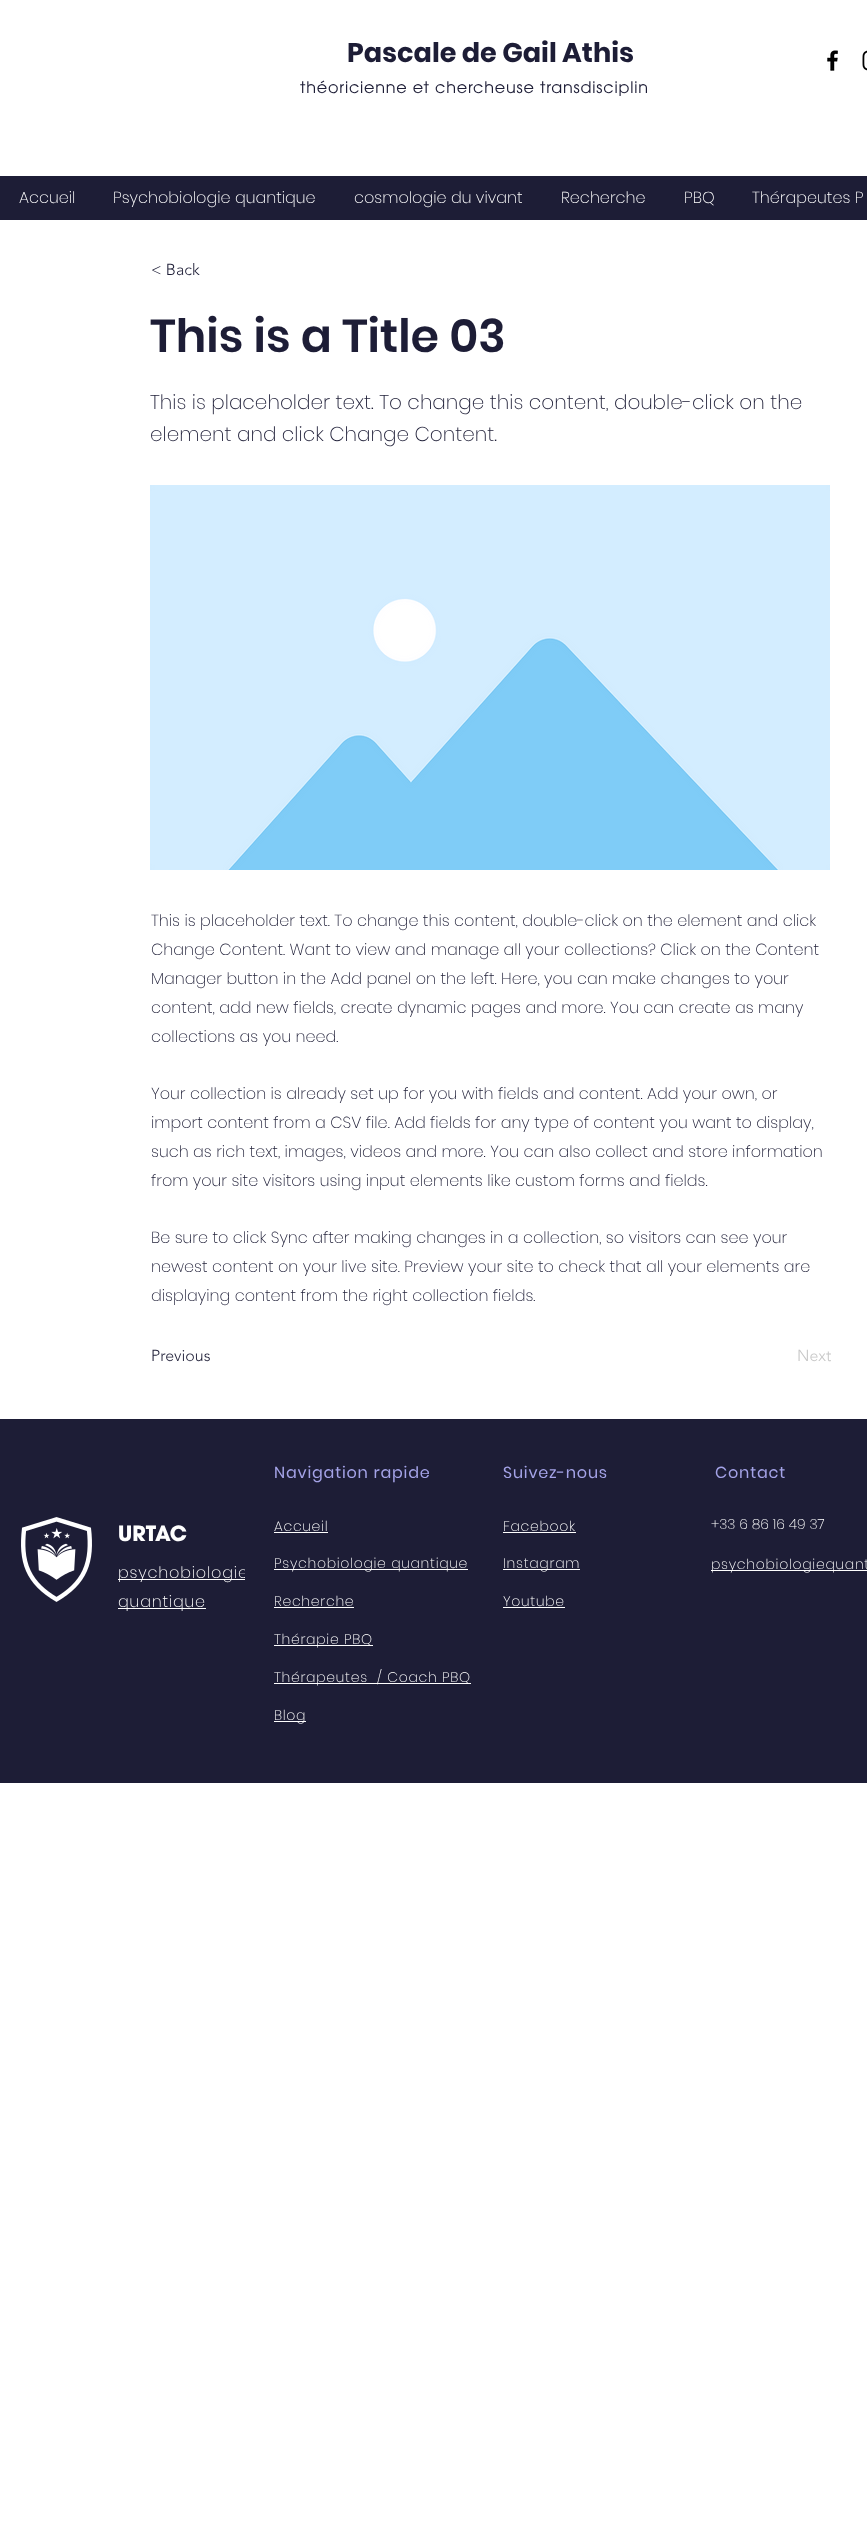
<svg xmlns="http://www.w3.org/2000/svg" width="867" height="2530" viewBox="0 0 867 2530">
  <style>
    .t1 { font: bold 27px Poppins; fill: #1d1d36; }
    .t2 { font: 16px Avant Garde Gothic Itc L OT; letter-spacing: 0.8px; fill: #1d1d36; }
    .t3 { font: 200 16px Poppins; fill: #fff; }
    .t4 { font: 300 16px 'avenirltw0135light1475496'; fill: #1d1d36; }
    .t5 { font: 600 46px Poppins; fill: #1d1d36; }
    .t6 { font: 200 20px Poppins; fill: #1d1d36; }
    .t7 { font: 200 16px Poppins; fill: #1d1d36; }
    .t8 { font: 300 16px 'avenirltw0135light1475496'; fill: #c7c7c7; }
    .t9 { font: bold 23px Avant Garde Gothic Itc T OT; fill: #fff; }
    .t10 { font: 200 16px Poppins; letter-spacing: 0.8px; fill: #fff; }
    .t11 { font: 16px Poppins; letter-spacing: 0.8px; fill: #a4a3e7; }
    .t12 { font: 200 14px Poppins; letter-spacing: 0.7px; fill: #fff; }
    .t13 { font: 200 14px Poppins; fill: #fff; }
  </style>
  <rect width="100%" height="100%" fill="#fff"/>
  <text x="347" y="62" class="t1">Pascale de Gail Athis</text>
  <text x="300" y="93" class="t2">théoricienne et chercheuse transdisciplin</text>
  <image x="827" y="50" width="11" height="21" href="images/1.png"/>
  <image x="862" y="50" width="5" height="21" href="images/2.png"/>
  <rect x="0" y="176" width="867" height="44" fill="#1d1d36"/>
  <text x="19" y="203" class="t3">Accueil</text>
  <text x="113" y="203" class="t3">Psychobiologie quantique</text>
  <text x="354" y="203" class="t3">cosmologie du vivant</text>
  <text x="561" y="203" class="t3">Recherche</text>
  <text x="684" y="203" class="t3">PBQ</text>
  <text x="752" y="203" class="t3">Thérapeutes P</text>
  <text x="151" y="275" class="t4">&lt; Back</text>
  <text x="150" y="352" class="t5">This is a Title 03</text>
  <text x="150" y="409" class="t6">This is placeholder text. To change this content, double-click on the</text>
  <text x="150" y="441" class="t6">element and click Change Content.</text>
  <image x="150" y="485" width="680" height="385" href="images/3.png"/>
  <text x="151" y="926" class="t7">This is placeholder text. To change this content, double-click on the element and click</text>
  <text x="151" y="955" class="t7">Change Content. Want to view and manage all your collections? Click on the Content</text>
  <text x="151" y="984" class="t7">Manager button in the Add panel on the left. Here, you can make changes to your</text>
  <text x="151" y="1013" class="t7">content, add new fields, create dynamic pages and more. You can create as many</text>
  <text x="151" y="1042" class="t7">collections as you need.</text>
  <text x="151" y="1099" class="t7">Your collection is already set up for you with fields and content. Add your own, or</text>
  <text x="151" y="1128" class="t7">import content from a CSV file. Add fields for any type of content you want to display,</text>
  <text x="151" y="1157" class="t7">such as rich text, images, videos and more. You can also collect and store information</text>
  <text x="151" y="1186" class="t7">from your site visitors using input elements like custom forms and fields.</text>
  <text x="151" y="1243" class="t7">Be sure to click Sync after making changes in a collection, so visitors can see your</text>
  <text x="151" y="1272" class="t7">newest content on your live site. Preview your site to check that all your elements are</text>
  <text x="151" y="1301" class="t7">displaying content from the right collection fields.</text>
  <text x="151" y="1361" class="t4">Previous</text>
  <text x="797" y="1361" class="t8">Next</text>
  <rect x="0" y="1419" width="245" height="364" fill="#1d1d36"/>
  <image x="21" y="1517" width="71" height="85" href="images/4.png"/>
  <text x="118" y="1541" class="t9">URTAC</text>
  <rect x="118" y="1579" width="131" height="1" fill="#fff"/>
  <text x="118" y="1578" class="t10">psychobiologie</text>
  <rect x="118" y="1608" width="88" height="1" fill="#fff"/>
  <text x="118" y="1607" class="t10">quantique</text>
  <rect x="245" y="1419" width="622" height="364" fill="#1d1d36"/>
  <text x="274" y="1478" class="t11">Navigation rapide</text>
  <text x="274" y="1531" class="t12">Accueil</text>
  <rect x="274" y="1532" width="54" height="1" fill="#fff"/>
  <rect x="274" y="1569" width="194" height="1" fill="#fff"/>
  <text x="274" y="1568" class="t12">Psychobiologie quantique</text>
  <text x="274" y="1606" class="t12">Recherche</text>
  <rect x="274" y="1607" width="80" height="1" fill="#fff"/>
  <rect x="274" y="1645" width="99" height="1" fill="#fff"/>
  <text x="274" y="1644" class="t12">Thérapie PBQ</text>
  <rect x="274" y="1683" width="197" height="1" fill="#fff"/>
  <text x="274" y="1682" class="t12" xml:space="preserve">Thérapeutes  / Coach PBQ</text>
  <rect x="274" y="1721" width="32" height="1" fill="#fff"/>
  <text x="274" y="1720" class="t12">Blog</text>
  <text x="503" y="1478" class="t11">Suivez-nous</text>
  <text x="503" y="1531" class="t12">Facebook</text>
  <rect x="503" y="1532" width="73" height="1" fill="#fff"/>
  <rect x="503" y="1569" width="77" height="1" fill="#fff"/>
  <text x="503" y="1568" class="t12">Instagram</text>
  <text x="503" y="1606" class="t12">Youtube</text>
  <rect x="503" y="1607" width="62" height="1" fill="#fff"/>
  <text x="715" y="1478" class="t11">Contact</text>
  <text x="711" y="1529" class="t13">+33 6 86 16 49 37</text>
  <rect x="711" y="1570" width="156" height="1" fill="#fff"/>
  <text x="711" y="1569" class="t12">psychobiologiequant</text>
</svg>
